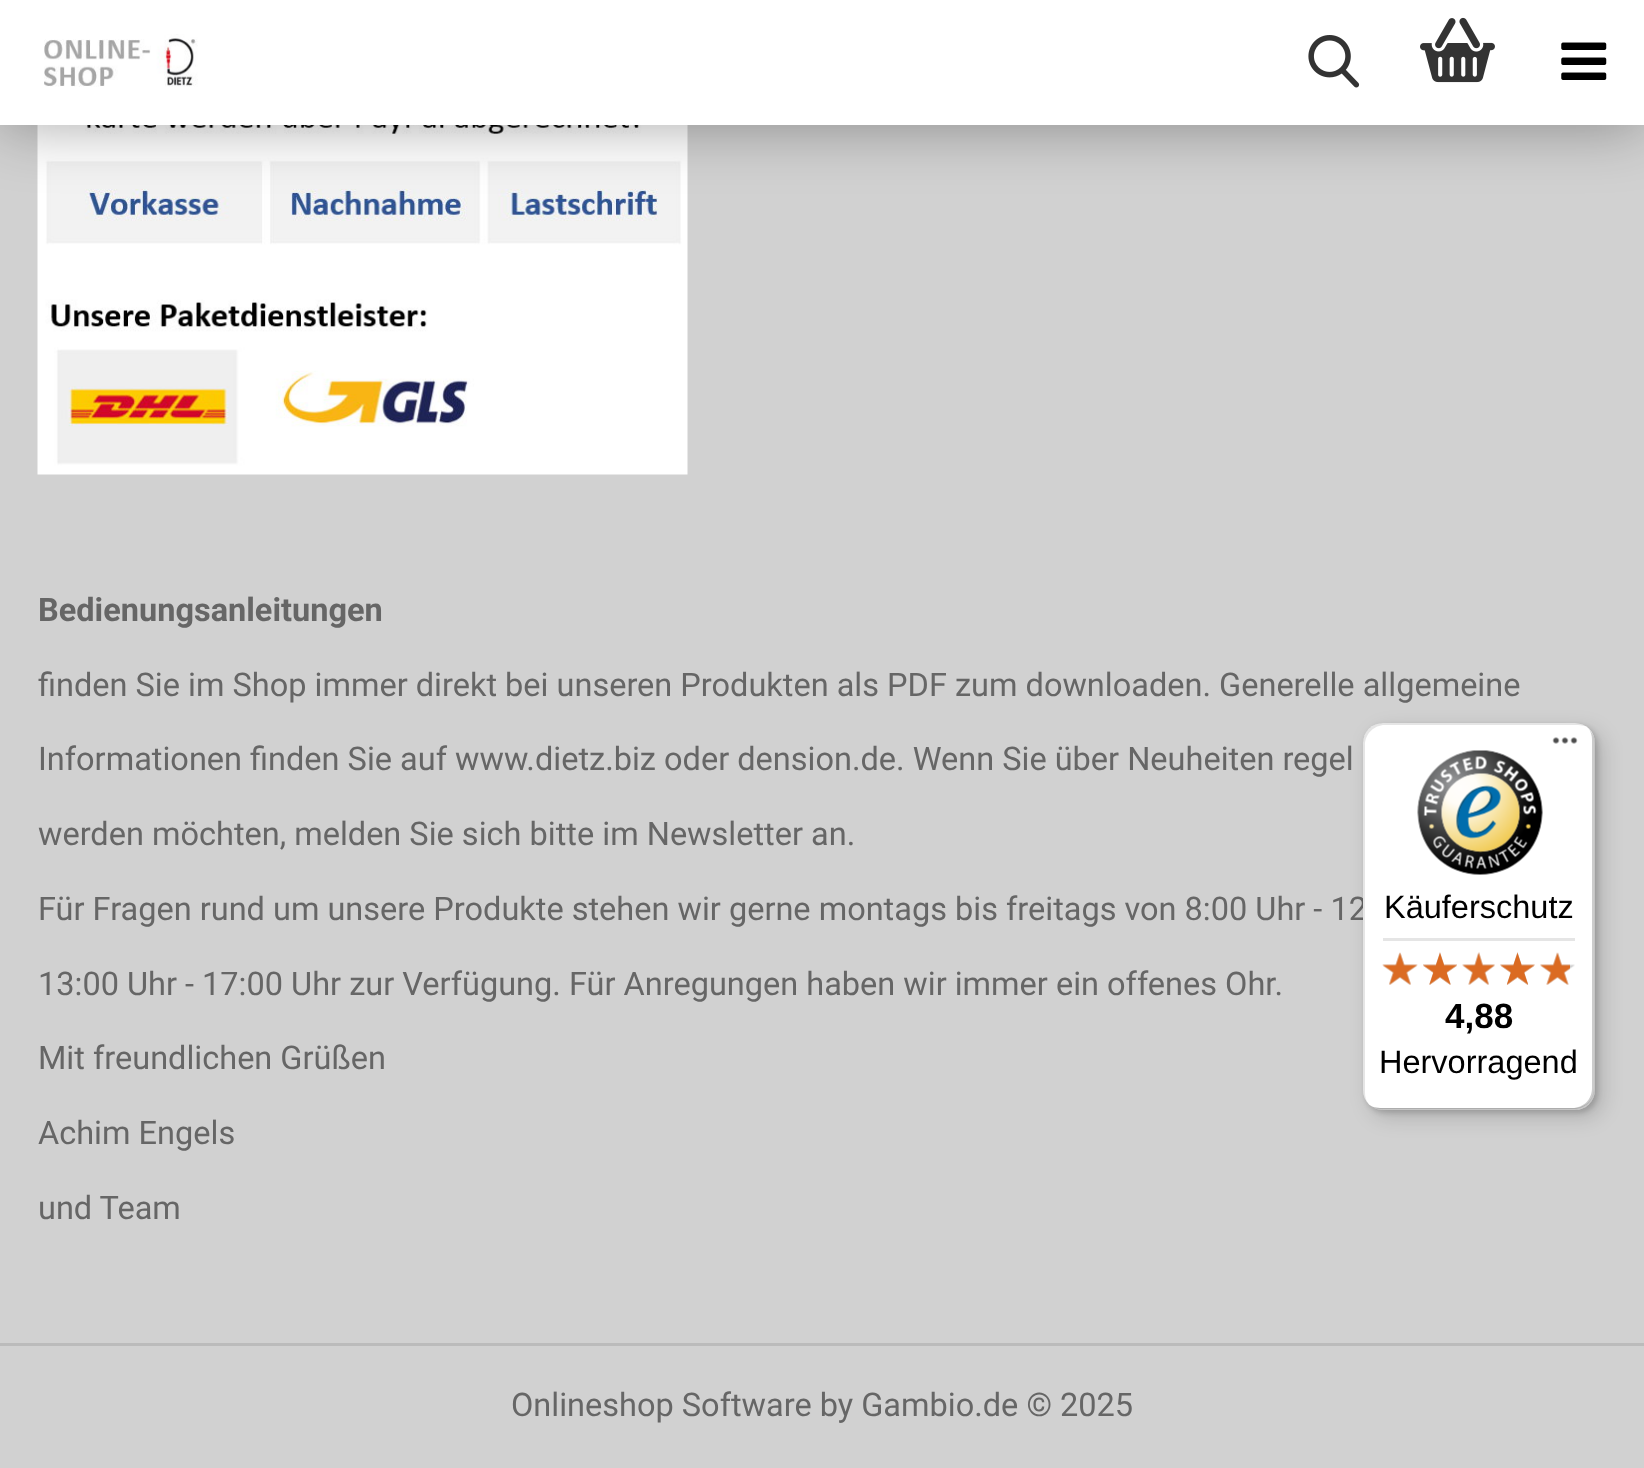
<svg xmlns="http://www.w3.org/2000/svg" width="1644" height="1468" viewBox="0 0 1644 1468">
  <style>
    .t1 { font: bold 32.5px Roboto; fill: #666; }
    .t2 { font: 32.5px Roboto; fill: #666; }
    .t3 { font: 32.5px Liberation Sans; fill: #000; }
    .t4 { font: bold 35px Liberation Sans; fill: #000; }
  </style>
  <rect width="100%" height="100%" fill="#d1d1d1"/>
  <image x="37" y="125" width="651" height="350" href="images/5.png"/>
  <rect x="0" y="0" width="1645" height="125" fill="#00000059" filter="blur(31px)"/>
  <rect x="0" y="0" width="1644" height="125" fill="#fff"/>
  <image x="44" y="34" width="154" height="53" href="images/1.png"/>
  <image x="1308" y="35" width="52" height="53" href="images/2.png"/>
  <image x="1420" y="17" width="75" height="66" href="images/3.png"/>
  <image x="1561" y="42" width="46" height="38" href="images/4.png"/>
  <rect x="0" y="1343" width="1644" height="3" fill="#bbb"/>
  <text x="38" y="621" class="t1">Bedienungsanleitungen</text>
  <text x="38" y="696" class="t2">finden Sie im Shop immer direkt bei unseren Produkten als PDF zum downloaden. Generelle allgemeine</text>
  <text x="38" y="770" class="t2">Informationen finden Sie auf www.dietz.biz oder dension.de. Wenn Sie über Neuheiten regel</text>
  <text x="38" y="845" class="t2">werden möchten, melden Sie sich bitte im Newsletter an.</text>
  <text x="38" y="920" class="t2">Für Fragen rund um unsere Produkte stehen wir gerne montags bis freitags von 8:00 Uhr - 12</text>
  <text x="38" y="995" class="t2">13:00 Uhr - 17:00 Uhr zur Verfügung. Für Anregungen haben wir immer ein offenes Ohr.</text>
  <text x="38" y="1069" class="t2">Mit freundlichen Grüßen</text>
  <text x="38" y="1144" class="t2">Achim Engels</text>
  <text x="38" y="1219" class="t2">und Team</text>
  <text x="511" y="1416" class="t2">Onlineshop Software by Gambio.de © 2025</text>
  <rect x="1370" y="730" width="233" height="388" rx="20" fill="#00000026" filter="blur(10px)"/>
  <rect x="1365" y="725" width="233" height="388" rx="20" fill="#00000026" filter="blur(2.5px)"/>
  <rect x="1363" y="723" width="232" height="387" rx="20" fill="#fff"/>
  <path d="M1385 725H1578C1581 725 1585 726 1588 727C1584 725 1580 723 1575 723H1383C1372 723 1363 732 1363 743V1090C1363 1095 1365 1100 1369 1104C1366 1101 1365 1097 1365 1092V745C1365 734 1374 725 1385 725Z" fill="#0000001a"/>
  <path d="M1370 1106C1374 1108 1378 1110 1383 1110H1575C1586 1110 1595 1101 1595 1090V743C1595 737 1592 732 1588 728C1591 731 1592 736 1592 740V1088C1592 1099 1584 1108 1572 1108H1380C1377 1108 1373 1107 1370 1106Z" fill="#00000033"/>
  <path d="M1369 1104C1373 1108 1378 1110 1383 1110H1575C1586 1110 1595 1101 1595 1090V743C1595 739 1594 736 1592 733C1593 735 1594 738 1594 741V1088C1594 1100 1585 1108 1574 1108H1381C1376 1108 1372 1107 1369 1104Z" fill="#32323233"/>
  <path d="M1373 1107C1376 1109 1379 1110 1383 1110H1575C1586 1110 1595 1101 1595 1090V743C1595 739 1594 736 1592 733C1593 735 1594 738 1594 741V1089C1594 1100 1585 1109 1574 1109H1381C1378 1109 1375 1108 1373 1107Z" fill="#ffffff4d"/>
  <image x="1552" y="737" width="26" height="7" href="images/6.png"/>
  <image x="1417" y="750" width="126" height="125" href="images/7.png"/>
  <text x="1384" y="918" class="t3">Käuferschutz</text>
  <rect x="1383" y="938" width="192" height="3" fill="#e5e5e5"/>
  <image x="1383" y="953" width="34" height="32" href="images/13.png"/>
  <image x="1382" y="952" width="36" height="33" href="images/8.png"/>
  <image x="1423" y="952" width="34" height="33" href="images/14.png"/>
  <image x="1423" y="952" width="34" height="33" href="images/9.png"/>
  <image x="1462" y="952" width="33" height="33" href="images/15.png"/>
  <image x="1462" y="952" width="33" height="33" href="images/10.png"/>
  <image x="1500" y="952" width="35" height="33" href="images/16.png"/>
  <image x="1500" y="952" width="35" height="33" href="images/11.png"/>
  <image x="1540" y="953" width="35" height="32" href="images/17.png"/>
  <image x="1540" y="952" width="30" height="33" href="images/12.png"/>
  <text x="1445" y="1028" class="t4">4,88</text>
  <text x="1379" y="1073" class="t3">Hervorragend</text>
</svg>
